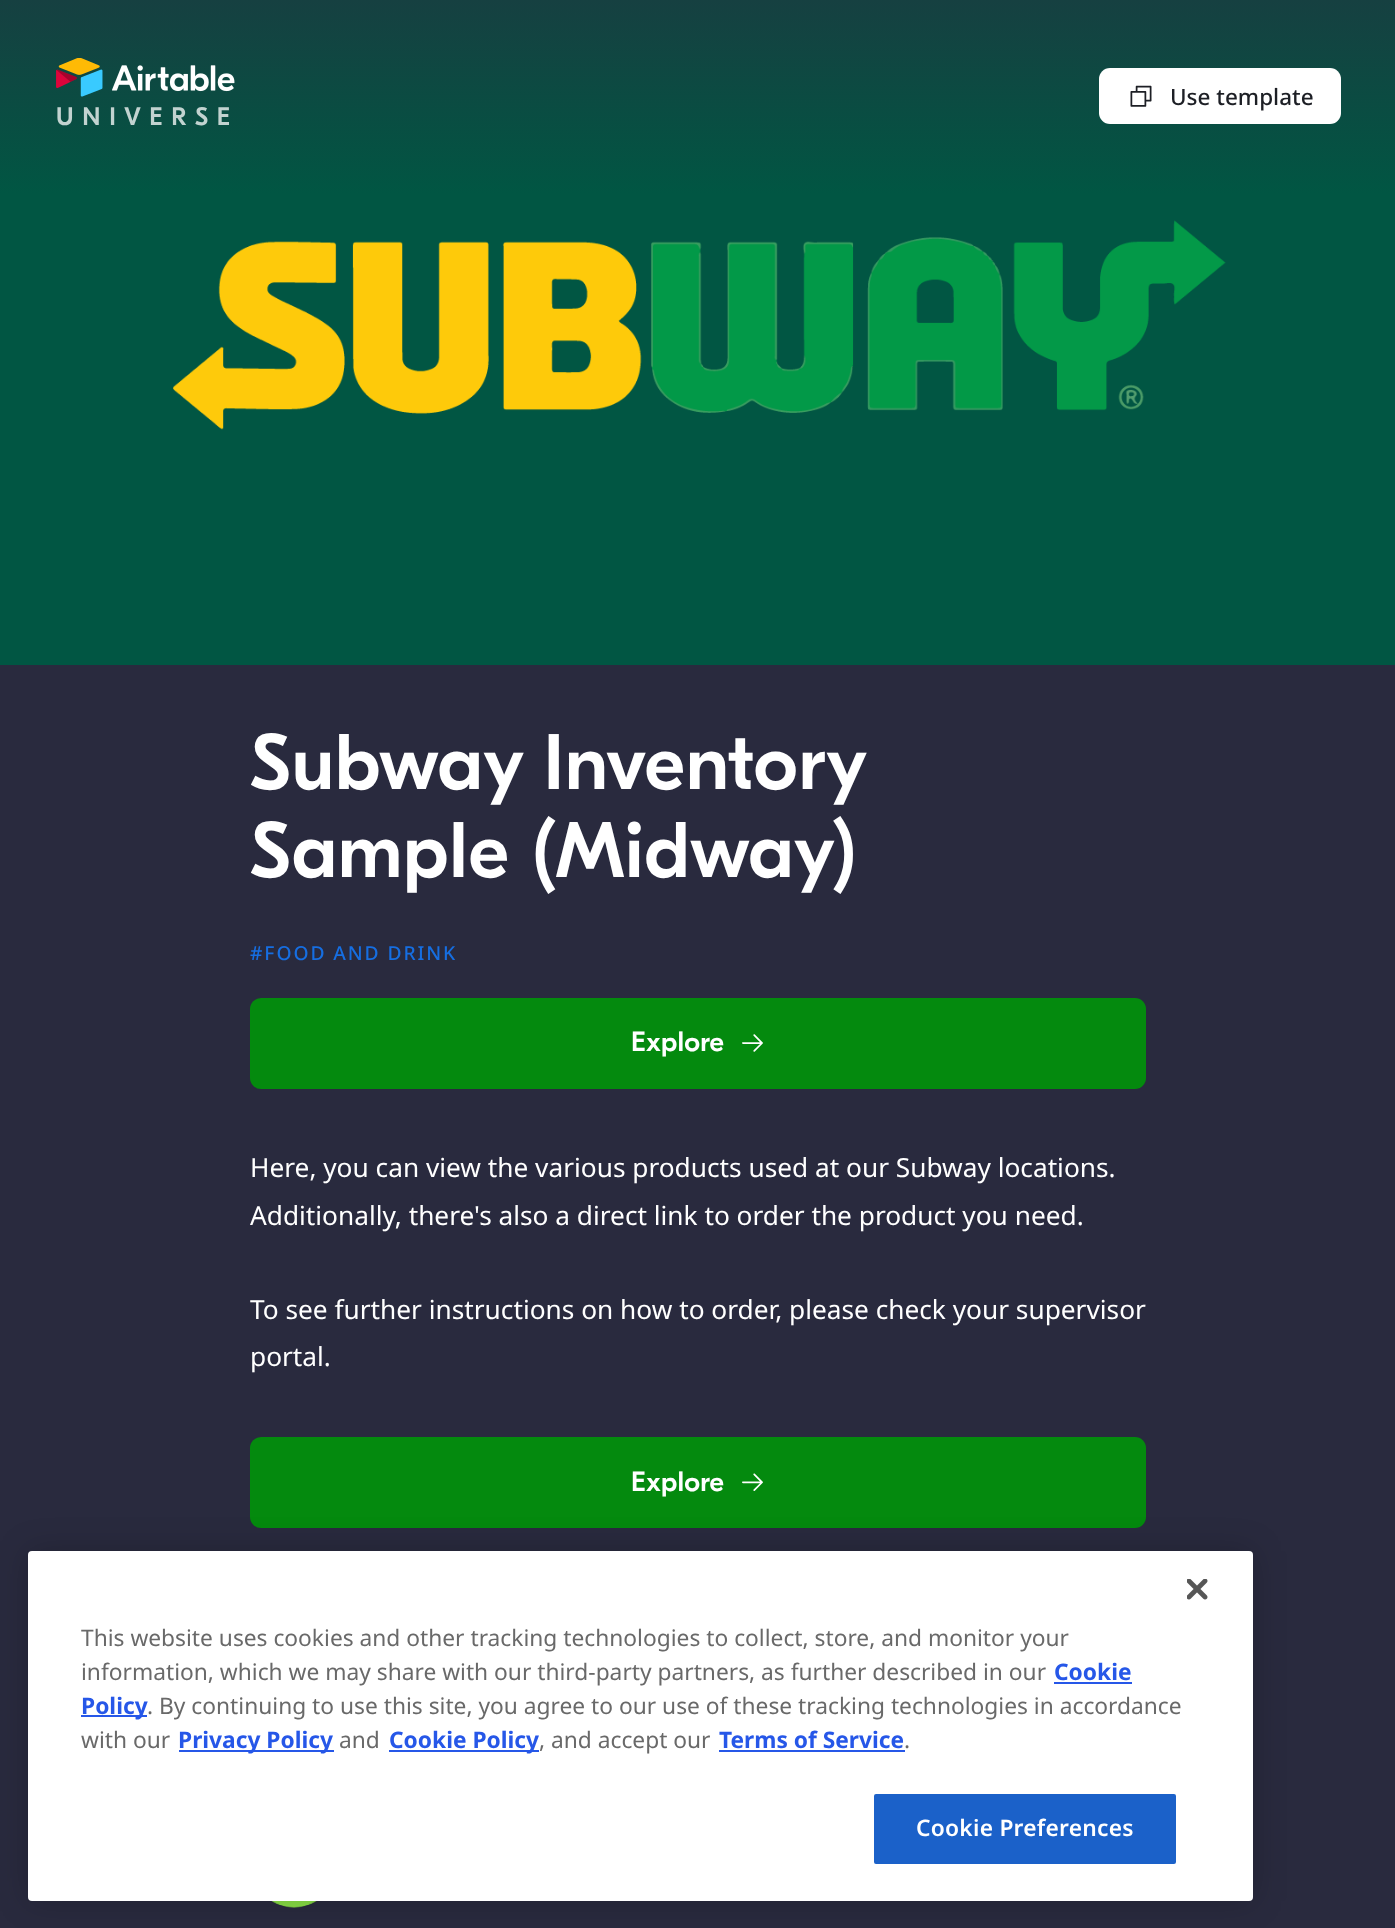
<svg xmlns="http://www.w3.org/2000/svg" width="1395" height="1928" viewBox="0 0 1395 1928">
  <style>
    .t1 { font: 500 22.5px Noto Sans; fill: #1d1f25; }
    .t2 { font: 500 25.25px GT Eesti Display; letter-spacing: 8.75px; fill: #c2d3d0; }
    .t3 { font: 500 78.5px GT Eesti Display; letter-spacing: 0.75px; fill: #fff; }
    .t4 { font: 500 19.25px Noto Sans; letter-spacing: 1.9px; fill: #166ee1; }
    .t5 { font: 500 28px GT Eesti Display; letter-spacing: 0.25px; fill: #fff; }
    .t6 { font: 26.25px Noto Sans; fill: #fff; }
    .t7 { font: 22.75px Noto Sans; fill: #696969; }
    .t8 { font: bold 22.75px Noto Sans; fill: #2657e8; }
    .t9 { font: 600 22.75px Noto Sans; letter-spacing: 0.25px; fill: #fff; }
  </style>
  <defs>
    <linearGradient id="g1" gradientUnits="userSpaceOnUse" x1="698" y1="0" x2="698" y2="193"><stop offset="0" stop-color="#164041"/><stop offset="1" stop-color="#015643"/></linearGradient>
  </defs>
  <rect width="100%" height="100%" fill="#292a3e"/>
  <image x="0" y="193" width="1395" height="472" href="images/1.png"/>
  <rect x="0" y="0" width="1395" height="193" fill="url(#g1)"/>
  <rect x="1099" y="68" width="242" height="56" rx="11" fill="#fff"/>
  <image x="1130" y="85" width="22" height="22" href="images/2.png"/>
  <text x="1170" y="105" class="t1">Use template</text>
  <image x="56" y="58" width="179" height="39" href="images/3.png"/>
  <text x="56" y="125" class="t2">UNIVERSE</text>
  <text x="250" y="789" word-spacing="-2" class="t3">Subway Inventory</text>
  <text x="250" y="877" class="t3">Sample (Midway)</text>
  <text x="250" y="960" class="t4">#FOOD AND DRINK</text>
  <rect x="250" y="998" width="896" height="91" rx="11" fill="#048a0e"/>
  <text x="631" y="1051" class="t5">Explore</text>
  <image x="742" y="1034" width="21" height="18" href="images/4.png"/>
  <text x="250" y="1177" class="t6">Here, you can view the various products used at our Subway locations.</text>
  <text x="250" y="1225" class="t6">Additionally, there's also a direct link to order the product you need.</text>
  <text x="250" y="1319" class="t6">To see further instructions on how to order, please check your supervisor</text>
  <text x="250" y="1366" class="t6">portal.</text>
  <rect x="250" y="1437" width="896" height="91" rx="11" fill="#048a0e"/>
  <text x="631" y="1491" class="t5">Explore</text>
  <image x="742" y="1473" width="21" height="18" href="images/5.png"/>
  <circle cx="294" cy="1864" r="44" fill="#27283b"/>
  <image x="271" y="1901" width="46" height="7" href="images/6.png"/>
  <rect x="28" y="1551" width="1225" height="350" rx="4" fill="#00000033" filter="blur(16px)"/>
  <rect x="28" y="1551" width="1225" height="350" rx="4" fill="#fff"/>
  <image x="1187" y="1579" width="21" height="21" href="images/7.png"/>
  <text x="81" y="1646" class="t7">This website uses cookies and other tracking technologies to collect, store, and monitor your</text>
  <text x="81" y="1680" class="t7">information, which we may share with our third-party partners, as further described in our</text>
  <text x="1054" y="1680" class="t8">Cookie</text>
  <rect x="1054" y="1682" width="78" height="2" fill="#2657e8"/>
  <rect x="81" y="1715" width="66" height="2" fill="#2657e8"/>
  <text x="81" y="1714" class="t8">Policy</text>
  <text x="147" y="1714" class="t7">. By continuing to use this site, you agree to our use of these tracking technologies in accordance</text>
  <text x="81" y="1748" class="t7">with our</text>
  <rect x="179" y="1750" width="155" height="2" fill="#2657e8"/>
  <text x="178" y="1748" class="t8">Privacy Policy</text>
  <text x="339" y="1748" class="t7">and</text>
  <rect x="389" y="1750" width="150" height="2" fill="#2657e8"/>
  <text x="389" y="1748" class="t8">Cookie Policy</text>
  <text x="539" y="1748" class="t7">, and accept our</text>
  <text x="719" y="1748" class="t8">Terms of Service</text>
  <rect x="719" y="1750" width="186" height="2" fill="#2657e8"/>
  <text x="904" y="1748" class="t7">.</text>
  <rect x="873" y="1793" width="304" height="72" rx="3" fill="#1b61c9" stroke="#fff" stroke-width="2"/>
  <text x="916" y="1836" class="t9">Cookie Preferences</text>
</svg>
